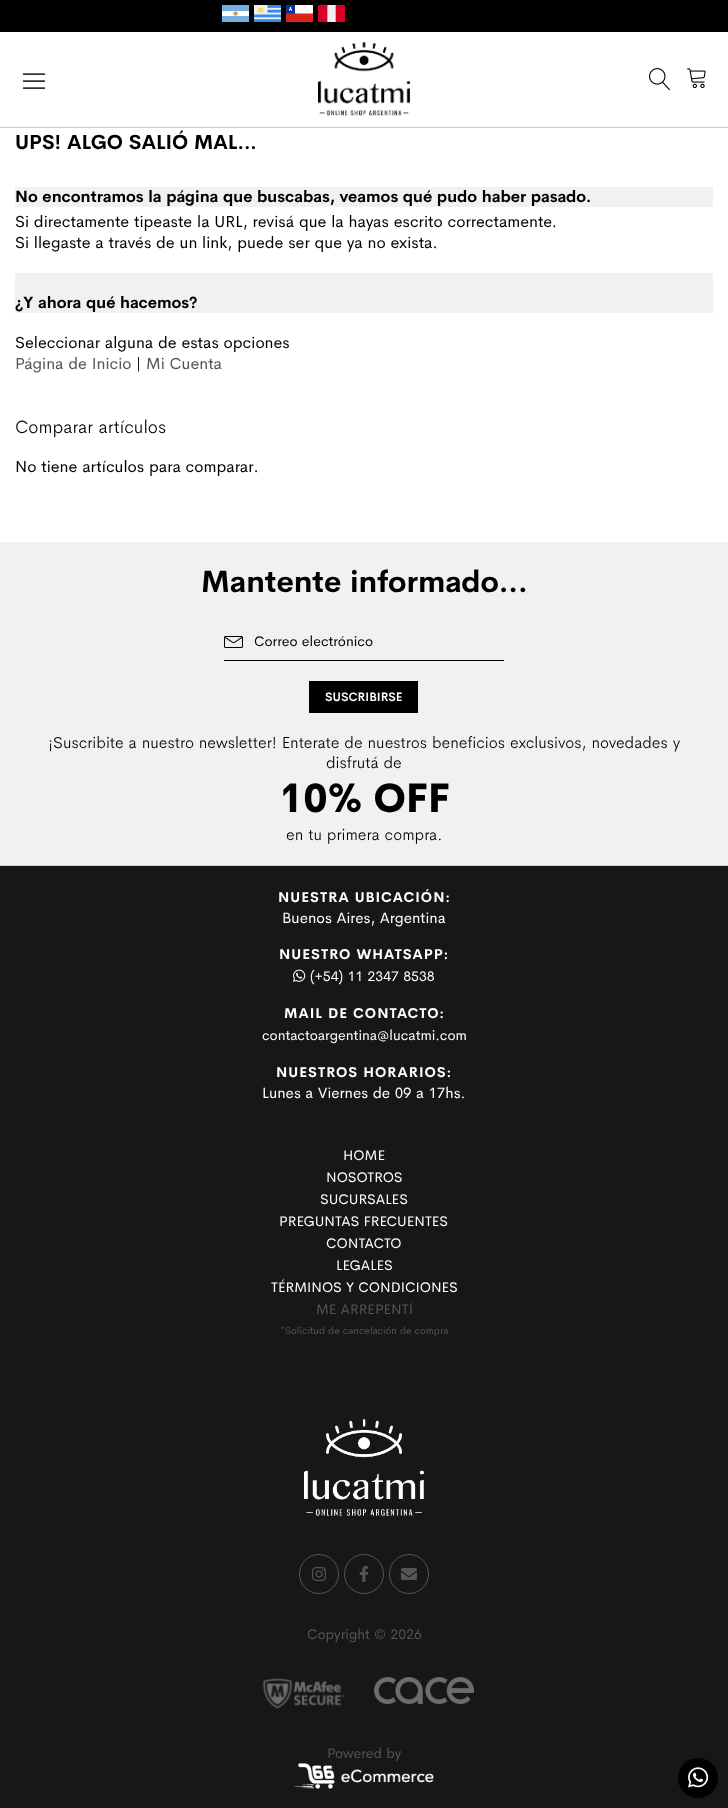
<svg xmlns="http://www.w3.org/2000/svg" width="728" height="1808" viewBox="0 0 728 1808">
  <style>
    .t1 { font: bold 20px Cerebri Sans; fill: #000; }
    .t2 { font: bold 16px Cerebri Sans; fill: #000; }
    .t3 { font: 16px Cerebri Sans; fill: #000; }
    .t4 { font: 16px Cerebri Sans; fill: #555; }
    .t5 { font: 300 18px Cerebri Sans; fill: #000; }
    .t6 { font: bold 30px Cerebri Sans; fill: #000; }
    .t7 { font: 14px Cerebri Sans; fill: #000; }
    .t8 { font: 600 12px Cerebri Sans; fill: #fff; }
    .t9 { font: 300 16px Cerebri Sans; fill: #000; }
    .t10 { font: 800 40px Cerebri Sans; fill: #000; }
    .t11 { font: bold 14px Cerebri Sans; letter-spacing: 1px; fill: #fff; }
    .t12 { font: 15px Cerebri Sans; fill: #fff; }
    .t13 { font: 14px Cerebri Sans; fill: #fff; }
    .t14 { font: 14px Cerebri Sans; fill: #555; }
    .t15 { font: 10px Cerebri Sans; fill: #555; }
  </style>
  <rect width="100%" height="100%" fill="#fff"/>
  <rect x="0" y="127" width="728" height="1" fill="#ccc"/>
  <rect x="0" y="0" width="728" height="32" fill="#000"/>
  <image x="222" y="5" width="27" height="17" href="images/1.png"/>
  <image x="254" y="5" width="27" height="17" href="images/2.png"/>
  <image x="286" y="5" width="27" height="17" href="images/3.png"/>
  <image x="318" y="5" width="27" height="17" href="images/4.png"/>
  <image x="22" y="73" width="24" height="16" href="images/5.png"/>
  <image x="318" y="42" width="92" height="74" href="images/6.png"/>
  <image x="649" y="68" width="21" height="23" href="images/7.png"/>
  <image x="687" y="68" width="19" height="21" href="images/8.png"/>
  <text x="15" y="149" class="t1">UPS! ALGO SALIÓ MAL...</text>
  <rect x="15" y="187" width="698" height="20" fill="#f1f1f1"/>
  <text x="15" y="202" class="t2">No encontramos la página que buscabas, veamos qué pudo haber pasado.</text>
  <text x="15" y="227" class="t3">Si directamente tipeaste la URL, revisá que la hayas escrito correctamente.</text>
  <text x="15" y="248" class="t3">Si llegaste a través de un link, puede ser que ya no exista.</text>
  <rect x="15" y="273" width="698" height="40" fill="#f1f1f1"/>
  <text x="15" y="308" class="t2">¿Y ahora qué hacemos?</text>
  <text x="15" y="348" class="t3">Seleccionar alguna de estas opciones</text>
  <text x="15" y="369" class="t4">Página de Inicio</text>
  <text x="136" y="369" class="t3">|</text>
  <text x="146" y="369" class="t4">Mi Cuenta</text>
  <text x="15" y="433" class="t5">Comparar artículos</text>
  <text x="15" y="472" class="t3">No tiene artículos para comparar.</text>
  <rect x="0" y="866" width="728" height="942" fill="#171717"/>
  <rect x="0" y="542" width="728" height="323" fill="#f1f1f1"/>
  <text x="201" y="592" class="t6">Mantente informado...</text>
  <image x="224" y="636" width="19" height="12" href="images/9.png"/>
  <rect x="224" y="660" width="280" height="1" fill="#000"/>
  <text x="254" y="646" class="t7">Correo electrónico</text>
  <rect x="309" y="681" width="109" height="32" fill="#000"/>
  <text x="325" y="701" class="t8">SUSCRIBIRSE</text>
  <text x="48" y="748" class="t9">¡Suscribite a nuestro newsletter! Enterate de nuestros beneficios exclusivos, novedades y</text>
  <text x="326" y="768" class="t9">disfrutá de</text>
  <text x="279" y="812" class="t10">10% OFF</text>
  <text x="286" y="840" class="t9">en tu primera compra.</text>
  <rect x="0" y="865" width="728" height="1" fill="#cecece"/>
  <text x="278" y="902" class="t11">NUESTRA UBICACIÓN:</text>
  <text x="282" y="923" class="t12">Buenos Aires, Argentina</text>
  <text x="279" y="959" class="t11">NUESTRO WHATSAPP:</text>
  <image x="293" y="969" width="13" height="13" href="images/10.png"/>
  <text x="310" y="981" class="t13">(+54) 11 2347 8538</text>
  <text x="284" y="1018" class="t11">MAIL DE CONTACTO:</text>
  <text x="262" y="1040" class="t13">contactoargentina@lucatmi.com</text>
  <text x="276" y="1077" class="t11">NUESTROS HORARIOS:</text>
  <text x="262" y="1098" class="t12">Lunes a Viernes de 09 a 17hs.</text>
  <text x="343" y="1160" class="t13">HOME</text>
  <text x="326" y="1182" class="t13">NOSOTROS</text>
  <text x="320" y="1204" class="t13">SUCURSALES</text>
  <text x="279" y="1226" class="t13">PREGUNTAS FRECUENTES</text>
  <text x="326" y="1248" class="t13">CONTACTO</text>
  <text x="336" y="1270" class="t13">LEGALES</text>
  <text x="271" y="1292" class="t13">TÉRMINOS Y CONDICIONES</text>
  <text x="316" y="1314" class="t14">ME ARREPENTÍ</text>
  <text x="280" y="1334" class="t15">*Solicitud de cancelación de compra</text>
  <image x="304" y="1419" width="120" height="97" href="images/11.png"/>
  <circle cx="319" cy="1574" r="19.5" fill="none" stroke="#555"/>
  <image x="312" y="1567" width="14" height="14" href="images/12.png"/>
  <circle cx="364" cy="1574" r="19.5" fill="none" stroke="#555"/>
  <image x="359" y="1566" width="10" height="16" href="images/13.png"/>
  <circle cx="409" cy="1574" r="19.5" fill="none" stroke="#555"/>
  <image x="401" y="1568" width="16" height="12" href="images/14.png"/>
  <text x="307" y="1639" class="t14">Copyright © 2026</text>
  <image x="262" y="1678" width="83" height="31" href="images/15.png"/>
  <image x="374" y="1677" width="100" height="27" href="images/16.png"/>
  <text x="327" y="1758" class="t14">Powered by</text>
  <image x="294" y="1763" width="140" height="26" href="images/17.png"/>
  <circle cx="698" cy="1778" r="20" fill="#000"/>
  <image x="688" y="1767" width="21" height="21" href="images/18.png"/>
</svg>
